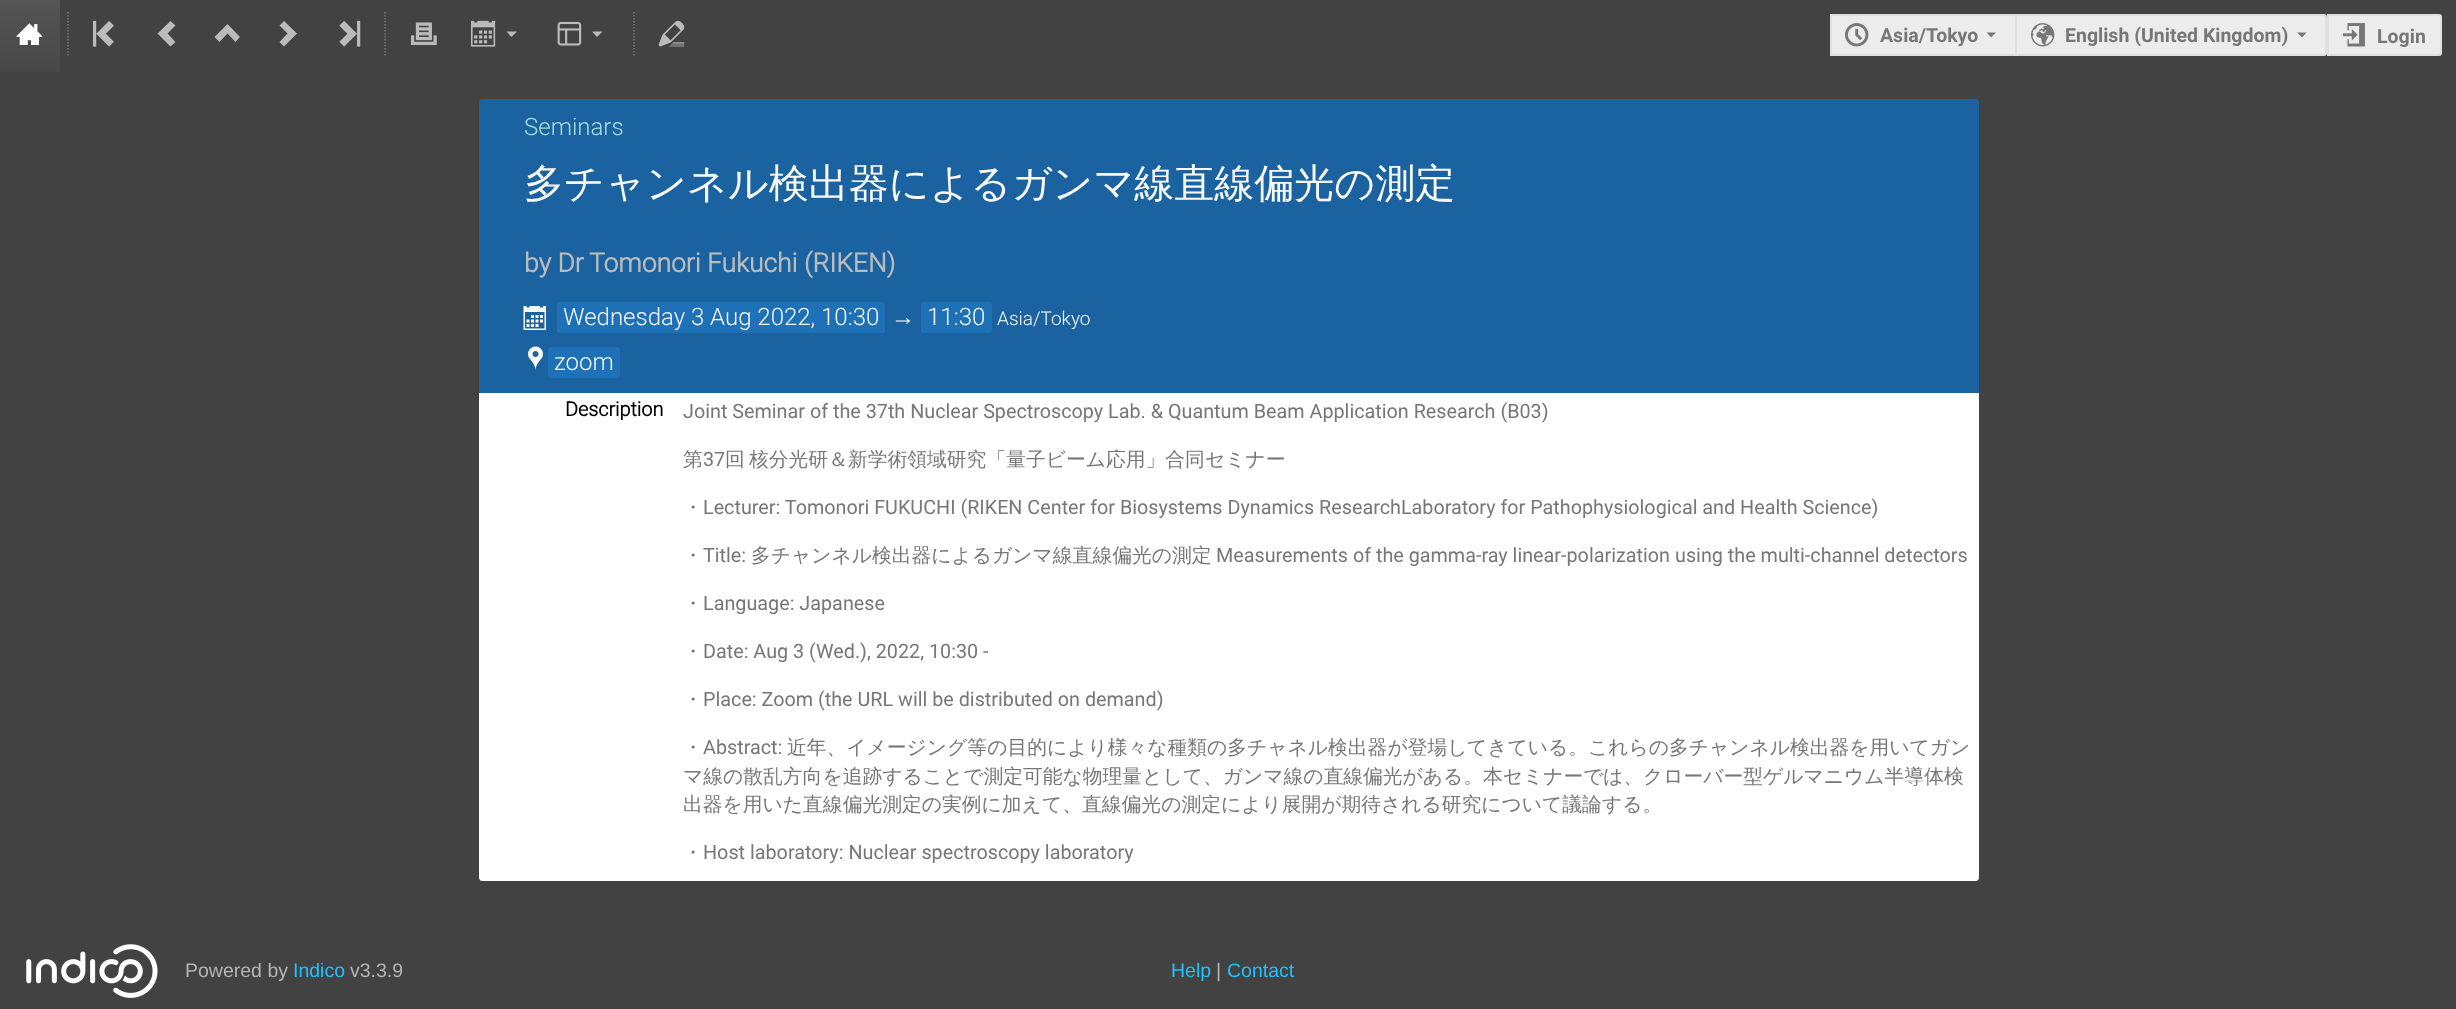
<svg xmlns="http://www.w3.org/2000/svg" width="2456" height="1009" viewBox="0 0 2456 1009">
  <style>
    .t1 { font: bold 19.5px 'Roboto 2'; fill: #777; }
    .t2 { font: 300 24px Roboto; fill: #a8dede; }
    .t3 { font: 500 40px WenQuanYi Zen Hei; fill: #f9f9f9; }
    .t4 { font: bold 26.4px Roboto; fill: #bbb; }
    .t5 { font: 300 24px Roboto; fill: #f9f9f9; }
    .t6 { font: 24px 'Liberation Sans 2'; fill: #f9f9f9; }
    .t7 { font: 300 19px Roboto; fill: #f9f9f9; }
    .t8 { font: bold 19.8px Roboto; fill: #000; }
    .t9 { font: 19.8px Roboto; fill: #777; }
    .t10 { font: 500 19.8px WenQuanYi Zen Hei; fill: #777; }
    .t11 { font: 19.5px Liberation Sans; fill: #b5b5b5; }
    .t12 { font: 19.5px Liberation Sans; fill: #21c0ff; }
    .t13 { font: 19.5px Liberation Sans; fill: #bbb; }
  </style>
  <defs>
    <linearGradient id="g1" gradientUnits="userSpaceOnUse" x1="30" y1="-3" x2="30" y2="72"><stop offset="0" stop-color="#555"/><stop offset="1" stop-color="#484848"/></linearGradient>
  </defs>
  <rect width="100%" height="100%" fill="#424242"/>
  <rect x="0" y="0" width="60" height="72" fill="url(#g1)"/>
  <image x="16" y="23" width="27" height="22" href="images/1.png"/>
  <path d="M68 12V57" fill="none" stroke="#777" stroke-width="1.5" stroke-dasharray="1.5 1.5"/>
  <image x="93" y="20" width="21" height="27" href="images/2.png"/>
  <path d="M170.5 46.5L175.5 42L167.5 33.5L175.5 25.5L170.5 21L157.5 33.5Z" fill="#bbb"/>
  <path d="M214.5 37L219.5 42L227.5 33.5L235.5 42L240 37L227.5 24Z" fill="#bbb"/>
  <path d="M284 21L279.5 25.5L287.5 33.5L279.5 42L284 46.5L297 33.5Z" fill="#bbb"/>
  <image x="339" y="20" width="22" height="27" href="images/3.png"/>
  <path d="M385 12V57" fill="none" stroke="#777" stroke-width="1.5" stroke-dasharray="1.5 1.5"/>
  <image x="411" y="22" width="26" height="23" href="images/4.png"/>
  <image x="471" y="20" width="25" height="27" href="images/5.png"/>
  <path d="M506.5 31.5L511.5 37L517 31.5Z" fill="#bbb"/>
  <image x="557" y="21" width="25" height="25" href="images/6.png"/>
  <path d="M592 31.5L597 37L602.5 31.5Z" fill="#bbb"/>
  <path d="M634 12V57" fill="none" stroke="#777" stroke-width="1.5" stroke-dasharray="1.5 1.5"/>
  <image x="658" y="20" width="27" height="27" href="images/7.png"/>
  <rect x="1832" y="16" width="183" height="38" fill="#ececec"/>
  <rect x="1830" y="14" width="185" height="2" fill="#dfdfdf"/>
  <rect x="1830" y="54" width="185" height="2" fill="#dfdfdf"/>
  <rect x="1830" y="14" width="2" height="42" fill="#dfdfdf"/>
  <image x="1845" y="23" width="24" height="24" href="images/8.png"/>
  <text x="1880" y="42" class="t1">Asia/Tokyo</text>
  <path d="M1986.5 32.5L1991 37.5L1996 32.5Z" fill="#777"/>
  <path d="M2016 15H2324C2325 15 2326 16 2326 17V53C2326 54 2325 55 2324 55H2016Z" fill="#ececec" stroke="#dfdfdf" stroke-width="2"/>
  <image x="2031" y="23" width="24" height="24" href="images/9.png"/>
  <text x="2065" y="42" class="t1">English (United Kingdom)</text>
  <path d="M2297 32.5L2302 37.5L2306.5 32.5Z" fill="#777"/>
  <path d="M2328 15H2439C2440 15 2441 16 2441 17V53C2441 54 2440 55 2439 55H2328Z" fill="#ececec" stroke="#dfdfdf" stroke-width="2"/>
  <image x="2343" y="23" width="22" height="24" href="images/10.png"/>
  <text x="2377" y="43" class="t1">Login</text>
  <path d="M482 99H1976C1977.5 99 1979 100.5 1979 102V393H479V102C479 100.5 480.5 99 482 99Z" fill="#1a63a0"/>
  <text x="524" y="135" class="t2">Seminars</text>
  <text x="524" y="197" class="t3">多チャンネル検出器によるガンマ線直線偏光の測定</text>
  <text x="524" y="272" class="t4">by Dr</text>
  <text x="589" y="272" class="t4">Tomonori Fukuchi (RIKEN)</text>
  <image x="523" y="306" width="23" height="24" href="images/11.png"/>
  <rect x="557" y="302" width="328" height="31" rx="3" fill="#1e71b6"/>
  <text x="563" y="325" class="t5">Wednesday 3 Aug 2022, 10:30</text>
  <text x="891" y="325" class="t6">→</text>
  <rect x="921" y="302" width="71" height="31" rx="3" fill="#1e71b6"/>
  <text x="927" y="325" class="t5">11:30</text>
  <text x="997" y="325" class="t7">Asia/Tokyo</text>
  <image x="528" y="346" width="15" height="25" href="images/12.png"/>
  <rect x="548" y="347" width="72" height="31" rx="3" fill="#1e71b6"/>
  <text x="554" y="370" class="t5">zoom</text>
  <path d="M479 393H1979V878C1979 879.5 1977.5 881 1976 881H482C480.5 881 479 879.5 479 878Z" fill="#fff"/>
  <text x="565" y="416" class="t8">Description</text>
  <text x="683" y="418" class="t9">Joint Seminar of the 37th Nuclear Spectroscopy Lab. &amp; Quantum Beam Application Research (B03)</text>
  <text x="683" y="466" class="t10">第</text>
  <text x="703" y="466" class="t9">37</text>
  <text x="725" y="466" class="t10">回</text>
  <text x="749" y="466" class="t10">核分光研＆新学術領域研究「量子ビーム応用」合同セミナー</text>
  <text x="683" y="514" class="t10">・</text>
  <text x="703" y="514" class="t9">Lecturer: Tomonori FUKUCHI (RIKEN Center for Biosystems Dynamics ResearchLaboratory for Pathophysiological and Health Science)</text>
  <text x="683" y="562" class="t10">・</text>
  <text x="703" y="562" class="t9">Title:</text>
  <text x="751" y="562" class="t10">多チャンネル検出器によるガンマ線直線偏光の測定</text>
  <text x="1216" y="562" class="t9">Measurements of the gamma-ray linear-polarization</text>
  <text x="1675" y="562" class="t9">using the multi-channel detectors</text>
  <text x="683" y="610" class="t10">・</text>
  <text x="703" y="610" class="t9">Language: Japanese</text>
  <text x="683" y="658" class="t10">・</text>
  <text x="703" y="658" class="t9">Date: Aug 3 (Wed.), 2022, 10:30 -</text>
  <text x="683" y="706" class="t10">・</text>
  <text x="703" y="706" class="t9">Place: Zoom (the URL will be distributed on demand)</text>
  <text x="683" y="754" class="t10">・</text>
  <text x="703" y="754" class="t9">Abstract:</text>
  <text x="787" y="754" class="t10">近年、イメージング等の目的により様々な種類の多チャネル検出器が登場し</text>
  <text x="1467" y="754" class="t10">てきている。これらの多チャンネル検出器を用いてガン</text>
  <text x="683" y="783" class="t10">マ線の散乱方向を追跡することで測定可能な物理量として、ガンマ線の直線偏光がある。本セミナーで</text>
  <text x="1603" y="783" class="t10">は、クローバー型ゲルマニウム半導体検</text>
  <text x="683" y="811" class="t10">出器を用いた直線偏光測定の実例に加え</text>
  <text x="1042" y="811" class="t10">て、直線偏光の測定により展開が期待される研究について議論する。</text>
  <text x="683" y="859" class="t10">・</text>
  <text x="703" y="859" class="t9">Host laboratory: Nuclear spectroscopy laboratory</text>
  <image x="26" y="944" width="132" height="54" href="images/13.png"/>
  <text x="185" y="977" class="t11">Powered by</text>
  <text x="293" y="977" class="t12">Indico</text>
  <text x="350" y="977" class="t11">v3.3.9</text>
  <text x="1171" y="977" class="t12">Help</text>
  <text x="1216" y="977" class="t13">|</text>
  <text x="1227" y="977" class="t12">Contact</text>
</svg>
